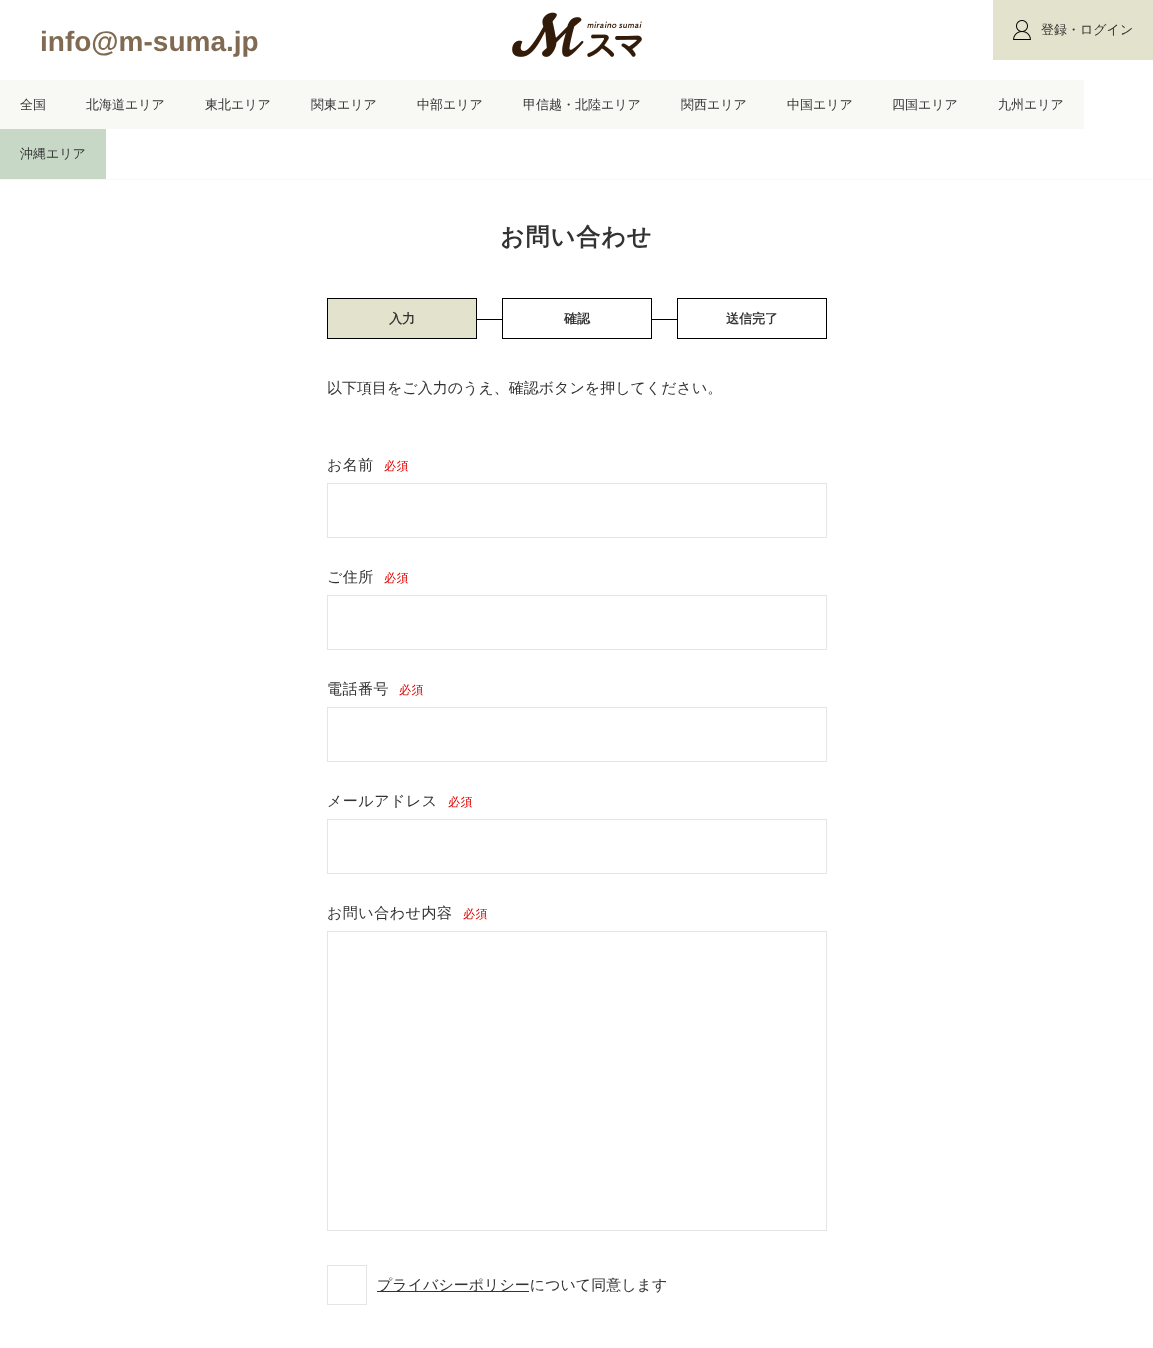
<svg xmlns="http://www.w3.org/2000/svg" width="1153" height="1348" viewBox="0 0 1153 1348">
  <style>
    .t1 { font: bold 28px Liberation Sans; fill: #806a52; }
    .t2 { font: 500 13px WenQuanYi Zen Hei; fill: #333; }
    .t3 { font: bold 24px WenQuanYi Zen Hei; letter-spacing: 1px; fill: #333; }
    .t4 { font: bold 13px WenQuanYi Zen Hei; fill: #333; }
    .t5 { font: 500 15px WenQuanYi Zen Hei; fill: #333; }
    .t6 { font: 500 15px WenQuanYi Zen Hei; letter-spacing: 0.5px; fill: #333; }
    .t7 { font: 500 12px WenQuanYi Zen Hei; letter-spacing: 0.5px; fill: #e30000; }
  </style>
  <rect width="100%" height="100%" fill="#fff"/>
  <rect x="0" y="179" width="1153" height="1" fill="#f8f8f4"/>
  <text x="40" y="51" class="t1">info@m-suma.jp</text>
  <image x="512" y="12" width="130" height="45" href="images/1.png"/>
  <rect x="993" y="0" width="160" height="60" fill="#e3e3cd"/>
  <image x="1013" y="20" width="18" height="20" href="images/2.png"/>
  <text x="1041" y="34" class="t2">登録・ログイン</text>
  <rect x="0" y="80" width="1084" height="49" fill="#f8f8f4"/>
  <text x="20" y="109" class="t2">全国</text>
  <text x="86" y="109" class="t2">北海道エリア</text>
  <text x="205" y="109" class="t2">東北エリア</text>
  <text x="311" y="109" class="t2">関東エリア</text>
  <text x="417" y="109" class="t2">中部エリア</text>
  <text x="523" y="109" class="t2">甲信越・北陸エリア</text>
  <text x="681" y="109" class="t2">関西エリア</text>
  <text x="787" y="109" class="t2">中国エリア</text>
  <text x="892" y="109" class="t2">四国エリア</text>
  <text x="998" y="109" class="t2">九州エリア</text>
  <rect x="0" y="129" width="106" height="50" fill="#c7d8c6"/>
  <text x="20" y="158" class="t2">沖縄エリア</text>
  <text x="500" y="245" class="t3">お問い合わせ</text>
  <rect x="327.5" y="298.5" width="149" height="40" fill="#e3e3cd" stroke="#000"/>
  <text x="389" y="323" class="t4">入力</text>
  <rect x="477" y="319" width="200" height="1" fill="#000"/>
  <rect x="503" y="319" width="148" height="1" fill="#fff"/>
  <rect x="502.5" y="298.5" width="149" height="40" fill="none" stroke="#000"/>
  <text x="564" y="323" class="t4">確認</text>
  <rect x="677.5" y="298.5" width="149" height="40" fill="none" stroke="#000"/>
  <text x="726" y="323" class="t4">送信完了</text>
  <text x="327" y="393" class="t5">以下項目をご入力のうえ、確認ボタンを押してください。</text>
  <text x="327" y="470" class="t6">お名前</text>
  <text x="384" y="470" class="t7">必須</text>
  <rect x="327.5" y="483.5" width="499" height="54" fill="none" stroke="#e5e5e5"/>
  <text x="327" y="582" class="t6">ご住所</text>
  <text x="384" y="582" class="t7">必須</text>
  <rect x="327.5" y="595.5" width="499" height="54" fill="none" stroke="#e5e5e5"/>
  <text x="327" y="694" class="t6">電話番号</text>
  <text x="399" y="694" class="t7">必須</text>
  <rect x="327.5" y="707.5" width="499" height="54" fill="none" stroke="#e5e5e5"/>
  <text x="327" y="806" class="t6">メールアドレス</text>
  <text x="448" y="806" class="t7">必須</text>
  <rect x="327.5" y="819.5" width="499" height="54" fill="none" stroke="#e5e5e5"/>
  <text x="327" y="918" class="t6">お問い合わせ内容</text>
  <text x="463" y="918" class="t7">必須</text>
  <rect x="327.5" y="931.5" width="499" height="299" fill="none" stroke="#e5e5e5"/>
  <rect x="327.5" y="1265.5" width="39" height="39" fill="none" stroke="#e5e5e5"/>
  <rect x="377" y="1291" width="152" height="1" fill="#333"/>
  <text x="377" y="1290" class="t5">プライバシーポリシーについて同意します</text>
</svg>
